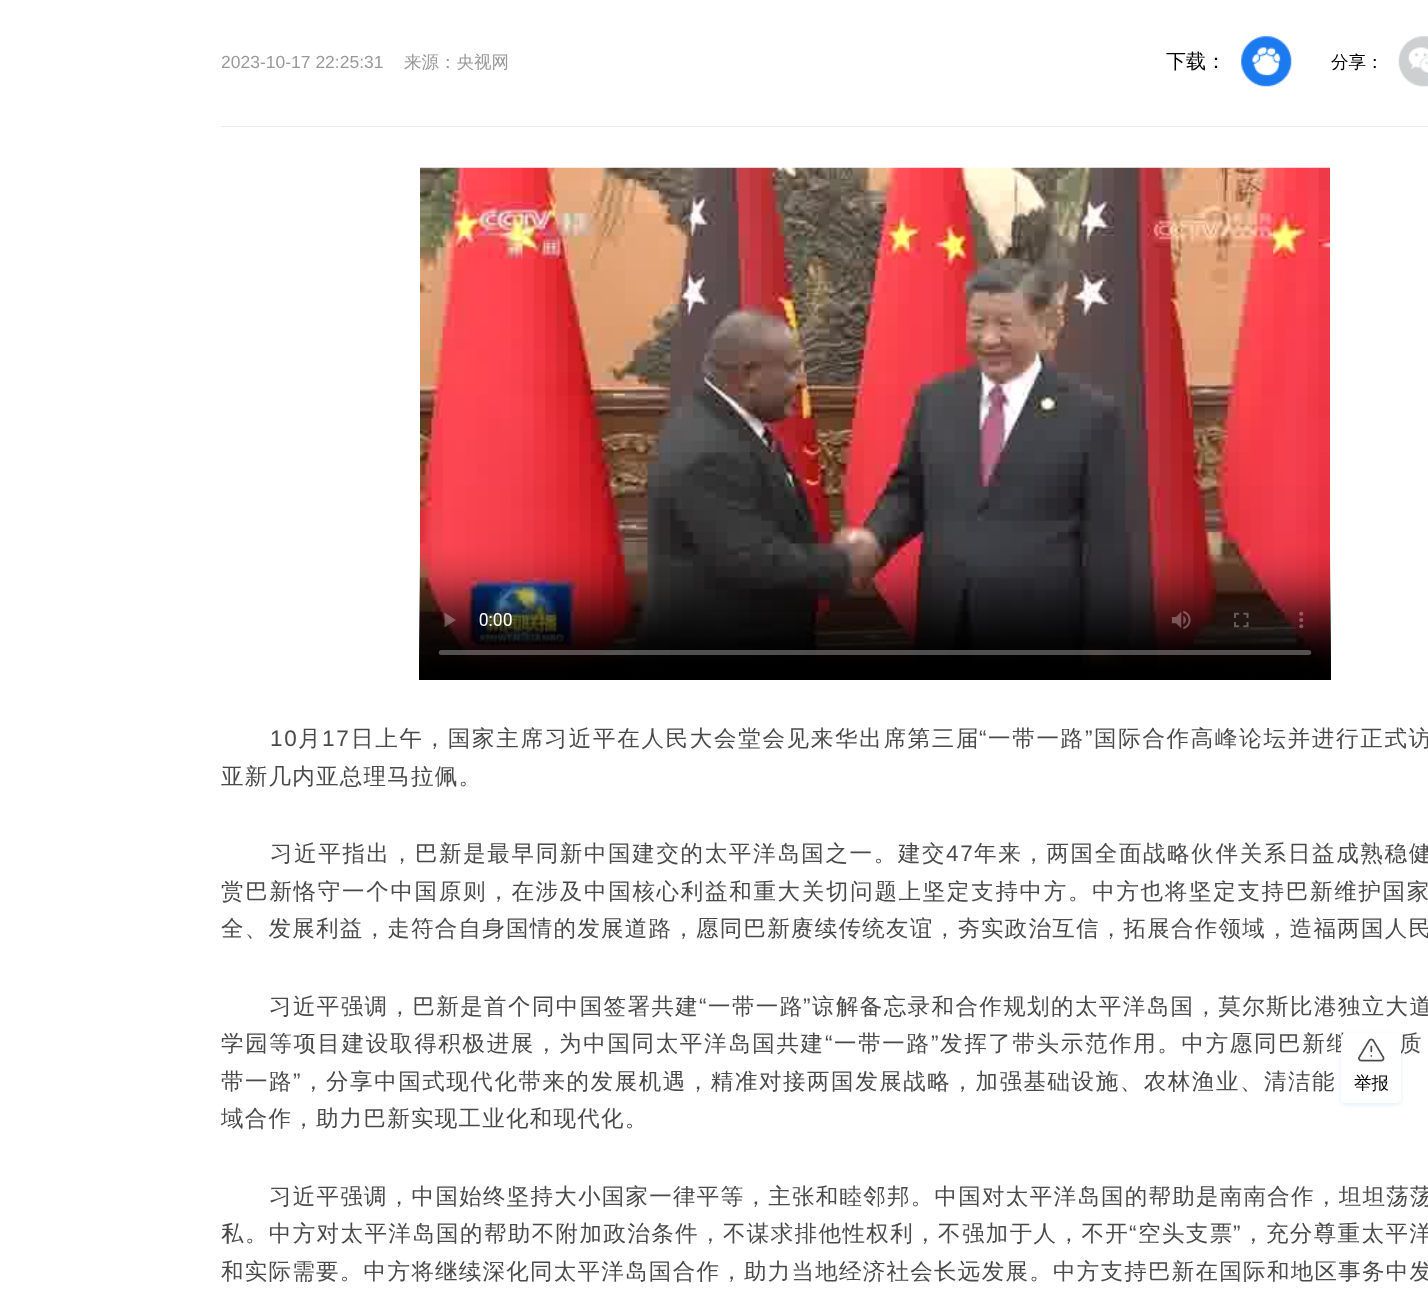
async function draw(canvas) {
	canvas.width = 1428;
	canvas.height = 1302;
	const c = canvas.getContext('2d');
	c.miterLimit = 4;
	c.fontKerning = 'normal';
	async function loadImage(src) {
		const img = new Image();
		img.src = src;
		await img.decode();
		return img;
	}

	c.fillStyle = '#fff';
	c.fillRect(0, 0, 1428, 1302);
	c.font = '17.5px Liberation Sans';
	c.fillStyle = '#999';
	c.fillText('2023-10-17 22:25:31', 221, 68);
	c.font = '500 17.5px WenQuanYi Zen Hei';
	c.fillText('来源：央视网', 404, 68);
	c.font = '500 20px WenQuanYi Zen Hei';
	c.fillStyle = '#000';
	c.fillText('下载：', 1166, 68);
	c.drawImage(await loadImage('img1.png'), 1241, 36, 51, 51);
	c.font = '500 17.5px WenQuanYi Zen Hei';
	c.fillText('分享：', 1331, 68);
	c.drawImage(await loadImage('img2.png'), 1398, 36, 30, 51);
	c.fillStyle = '#ebebeb';
	c.fillRect(221, 126, 1207, 1);
	c.drawImage(await loadImage('img3.png'), 419, 167, 912, 513);
	c.letterSpacing = '1.7px';
	c.font = '22.5px Liberation Sans';
	c.fillStyle = '#4a4a4a';
	c.fillText('10', 270, 746);
	c.font = '500 22.5px WenQuanYi Zen Hei';
	c.fillText('月', 298, 746);
	c.font = '22.5px Liberation Sans';
	c.fillText('17', 322, 746);
	c.font = '500 22.5px WenQuanYi Zen Hei';
	c.fillText('日上午，国家主席习近平在人民大会堂会见来华出席第三届', 351, 746);
	c.font = '22.5px Liberation Sans';
	c.fillText('“', 979, 746);
	c.font = '500 22.5px WenQuanYi Zen Hei';
	c.fillText('一带一路', 988, 746);
	c.font = '22.5px Liberation Sans';
	c.fillText('”', 1085, 746);
	c.font = '500 22.5px WenQuanYi Zen Hei';
	c.fillText('国际合作高峰论坛并进行正式访', 1094, 746);
	c.letterSpacing = '1.25px';
	c.fillText('亚新几内亚总理马拉佩。', 221, 784);
	c.letterSpacing = '1.65px';
	c.fillText('习近平指出，巴新是最早同新中国建交的太平洋岛国之一。建交', 270, 861);
	c.font = '22.5px Liberation Sans';
	c.fillText('47', 946, 861);
	c.font = '500 22.5px WenQuanYi Zen Hei';
	c.fillText('年来，两国全面战略伙伴关系日益成熟稳健', 974, 861);
	c.letterSpacing = '1.7px';
	c.fillText('赏巴新恪守一个中国原则，在涉及中国核心利益和重大关切问题上坚定支持中方。中方也将坚定支持巴新维护国家', 221, 899);
	c.letterSpacing = '1.25px';
	c.fillText('全、发展利益，走符合自身国情的发展道路，愿同巴新赓续传统友谊，夯实政治互信，拓展合作领域，造福两国人民', 221, 936);
	c.letterSpacing = '1.4px';
	c.fillText('习近平强调，巴新是首个同中国签署共建', 269, 1014);
	c.font = '22.5px Liberation Sans';
	c.fillText('“', 699, 1014);
	c.font = '500 22.5px WenQuanYi Zen Hei';
	c.fillText('一带一路', 708, 1014);
	c.font = '22.5px Liberation Sans';
	c.fillText('”', 803, 1014);
	c.font = '500 22.5px WenQuanYi Zen Hei';
	c.fillText('谅解备忘录和合作规划的太平洋岛国，莫尔斯比港独立大道', 812, 1014);
	c.letterSpacing = '1.65px';
	c.fillText('学园等项目建设取得积极进展，为中国同太平洋岛国共建', 221, 1051);
	c.font = '22.5px Liberation Sans';
	c.fillText('“', 825, 1051);
	c.font = '500 22.5px WenQuanYi Zen Hei';
	c.fillText('一带一路', 834, 1051);
	c.font = '22.5px Liberation Sans';
	c.fillText('”', 931, 1051);
	c.font = '500 22.5px WenQuanYi Zen Hei';
	c.fillText('发挥了带头示范作用。中方愿同巴新继', 940, 1051);
	c.fillText('质', 1399, 1051);
	c.letterSpacing = '1.55px';
	c.fillText('带一路', 221, 1089);
	c.font = '22.5px Liberation Sans';
	c.fillText('”', 293, 1089);
	c.font = '500 22.5px WenQuanYi Zen Hei';
	c.fillText('，分享中国式现代化带来的发展机遇，精准对接两国发展战略，加强基础设施、农林渔业、清洁能', 302, 1089);
	c.letterSpacing = '1.25px';
	c.fillText('域合作，助力巴新实现工业化和现代化。', 221, 1126);
	c.letterSpacing = '1.27px';
	c.fillText('习近平强调，中国始终坚持大小国家一律平等，主张和睦邻邦。中国对太平洋岛国的帮助是南南合作，坦坦荡荡', 269, 1204);
	c.letterSpacing = '1.4px';
	c.fillText('私。中方对太平洋岛国的帮助不附加政治条件，不谋求排他性权利，不强加于人，不开', 221, 1241);
	c.font = '22.5px Liberation Sans';
	c.fillText('“', 1129, 1241);
	c.font = '500 22.5px WenQuanYi Zen Hei';
	c.fillText('空头支票', 1138, 1241);
	c.font = '22.5px Liberation Sans';
	c.fillText('”', 1233, 1241);
	c.font = '500 22.5px WenQuanYi Zen Hei';
	c.fillText('，充分尊重太平洋', 1242, 1241);
	c.letterSpacing = '1.27px';
	c.fillText('和实际需要。中方将继续深化同太平洋岛国合作，助力当地经济社会长远发展。中方支持巴新在国际和地区事务中发', 221, 1279);
	c.fillStyle = '#1c7aef1f';
	c.filter = 'blur(2.5px)';
	c.beginPath();
	c.roundRect(1341, 1035, 60, 70, 5);
	c.fill();
	c.filter = 'none';
	c.fillStyle = '#fff';
	c.beginPath();
	c.roundRect(1341, 1033, 60, 70, 5);
	c.fill();
	c.drawImage(await loadImage('img4.png'), 1358, 1038, 27, 24);
	c.letterSpacing = '0px';
	c.font = '500 17.5px WenQuanYi Zen Hei';
	c.fillStyle = '#000';
	c.fillText('举报', 1354, 1089);
}

draw(document.querySelector('canvas'));
